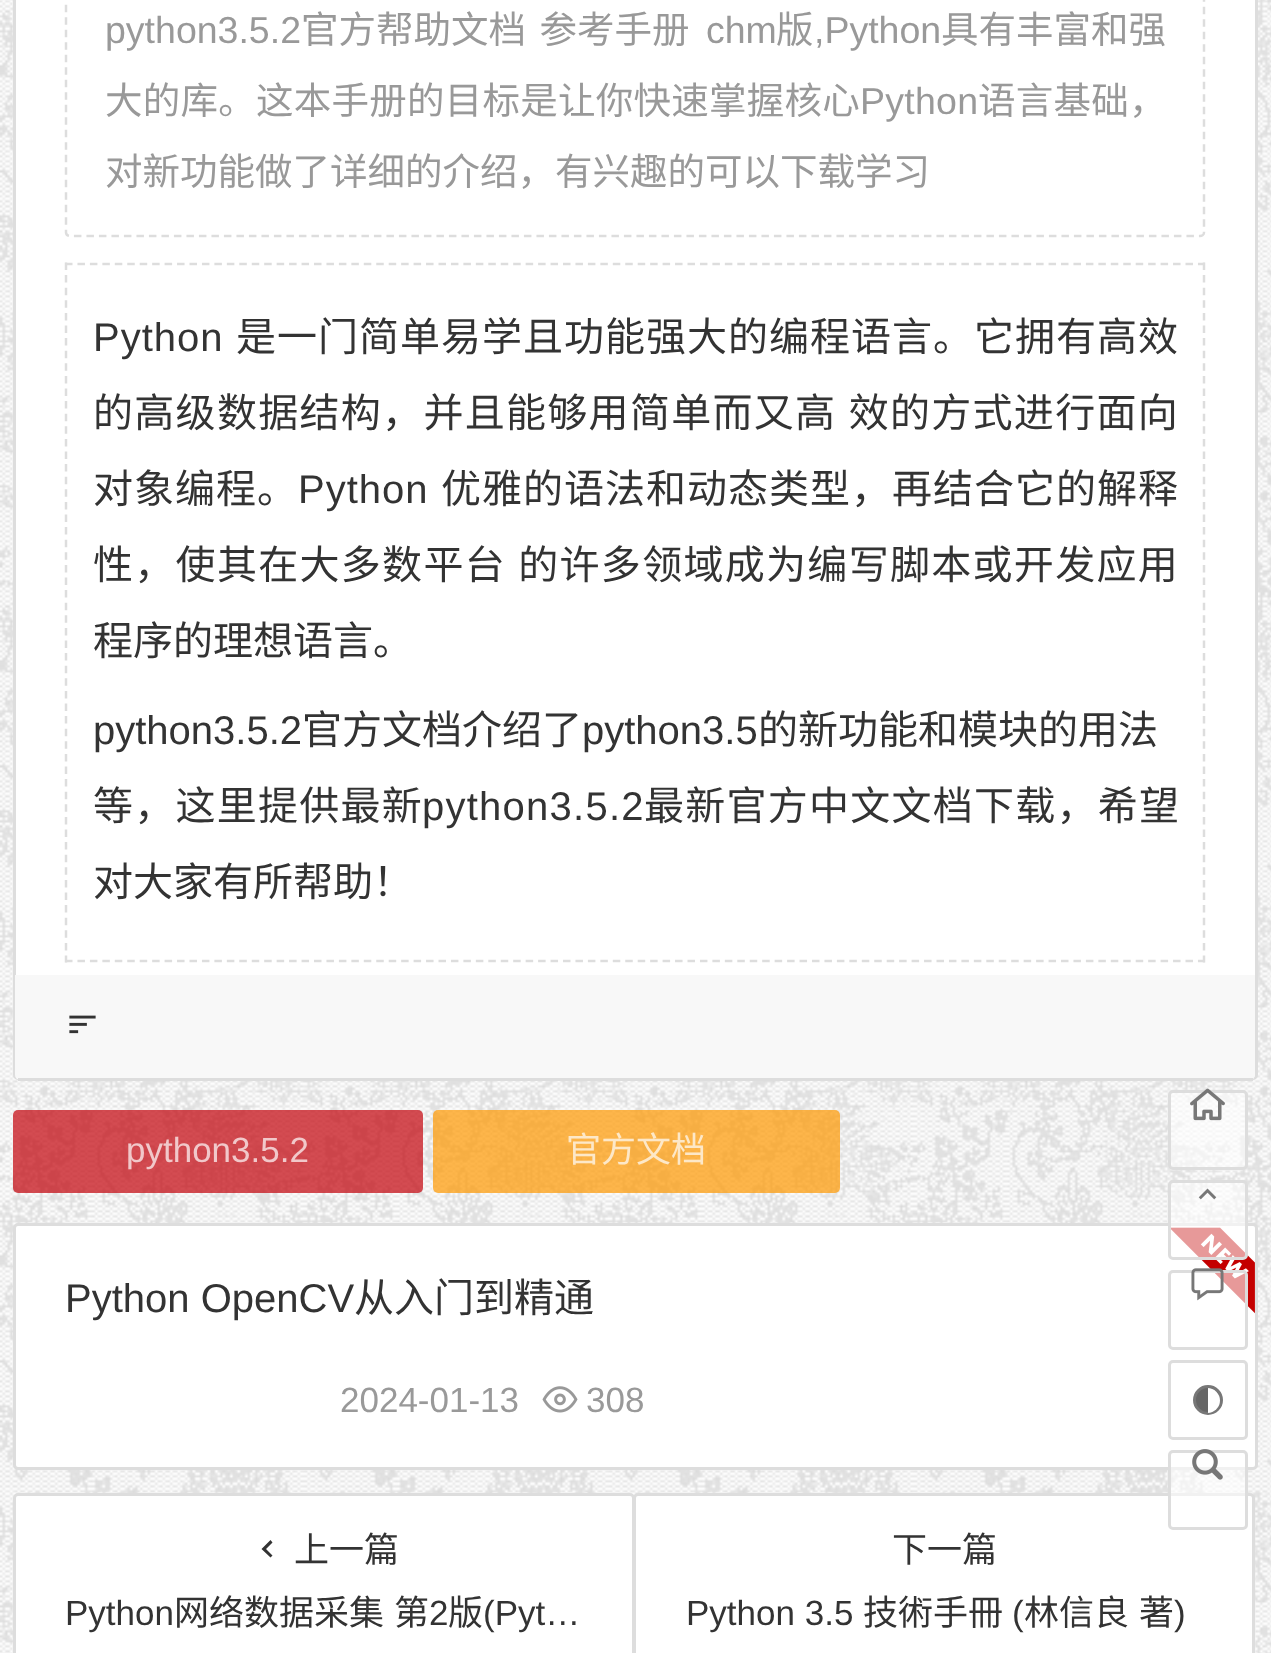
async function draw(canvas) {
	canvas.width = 1271;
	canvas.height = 1653;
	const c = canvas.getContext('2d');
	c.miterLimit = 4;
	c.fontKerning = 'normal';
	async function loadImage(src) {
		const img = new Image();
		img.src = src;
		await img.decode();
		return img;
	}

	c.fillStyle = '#fff';
	c.fillRect(0, 0, 1271, 1653);
	c.drawImage(await loadImage('img1.png'), 0, 0, 1271, 1653);
	c.beginPath();
	c.roundRect(14.5, -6.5, 1242, 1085, 3.5);
	c.fill();
	c.strokeStyle = '#ddd';
	c.lineWidth = 3;
	c.stroke();
	c.beginPath();
	c.moveTo(70, -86);
	c.lineTo(1200, -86);
	c.bezierCurveTo(1202, -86, 1204, -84.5, 1204, -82.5);
	c.lineTo(1204, 232.5);
	c.bezierCurveTo(1204, 234.5, 1202, 236, 1200, 236);
	c.lineTo(70, 236);
	c.bezierCurveTo(68, 236, 66, 234.5, 66, 232.5);
	c.lineTo(66, -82.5);
	c.bezierCurveTo(66, -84.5, 68, -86, 70, -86);
	c.closePath();
	c.lineWidth = 2.5;
	c.setLineDash([7.5, 5]);
	c.stroke();
	c.font = '37.5px Liberation Sans';
	c.fillStyle = '#999';
	c.fillText('python3.5.2', 105, 43);
	c.wordSpacing = '5px';
	c.font = '37.5px Noto Sans CJK SC';
	c.fillText('官方帮助文档 参考手册', 301, 43);
	c.wordSpacing = '0px';
	c.font = '37.5px Liberation Sans';
	c.fillText('chm', 706, 43);
	c.font = '37.5px Noto Sans CJK SC';
	c.fillText('版', 776, 43);
	c.font = '37.5px Liberation Sans';
	c.fillText(',Python', 814, 43);
	c.font = '37.5px Noto Sans CJK SC';
	c.fillText('具有丰富和强', 941, 43);
	c.letterSpacing = '0.25px';
	c.fillText('大的库。这本手册的目标是让你快速掌握核心', 105, 114);
	c.font = '37.5px Liberation Sans';
	c.fillText('Python', 860, 114);
	c.font = '37.5px Noto Sans CJK SC';
	c.fillText('语言基础，', 978, 114);
	c.letterSpacing = '0px';
	c.fillText('对新功能做了详细的介绍，有兴趣的可以下载学习', 105, 185);
	c.beginPath();
	c.moveTo(65, 264);
	c.lineTo(1205, 264);
	c.setLineDash([7.5, 4.95]);
	c.stroke();
	c.beginPath();
	c.moveTo(1204, 262.5);
	c.lineTo(1204, 962.5);
	c.setLineDash([7.5, 5.1]);
	c.stroke();
	c.beginPath();
	c.moveTo(65, 961);
	c.lineTo(1205, 961);
	c.setLineDash([7.5, 4.95]);
	c.stroke();
	c.beginPath();
	c.moveTo(66, 262.5);
	c.lineTo(66, 962.5);
	c.setLineDash([7.5, 5.1]);
	c.stroke();
	c.letterSpacing = '1px';
	c.font = '40px Liberation Sans';
	c.fillStyle = '#333';
	c.fillText('Python', 93, 351);
	c.font = '40px Noto Sans CJK SC';
	c.fillText('是一门简单易学且功能强大的编程语言。它拥有高效', 236, 351);
	c.letterSpacing = '1.3px';
	c.wordSpacing = '2px';
	c.fillText('的高级数据结构，并且能够用简单而又高 效的方式进行面向', 93, 427);
	c.letterSpacing = '1px';
	c.wordSpacing = '0px';
	c.fillText('对象编程。', 93, 503);
	c.font = '40px Liberation Sans';
	c.fillText('Python', 298, 503);
	c.font = '40px Noto Sans CJK SC';
	c.fillText('优雅的语法和动态类型，再结合它的解释', 441, 503);
	c.letterSpacing = '1.3px';
	c.wordSpacing = '2px';
	c.fillText('性，使其在大多数平台 的许多领域成为编写脚本或开发应用', 93, 579);
	c.letterSpacing = '0px';
	c.wordSpacing = '0px';
	c.fillText('程序的理想语言。', 93, 655);
	c.font = '40px Liberation Sans';
	c.fillText('python3.5.2', 93, 744);
	c.font = '40px Noto Sans CJK SC';
	c.fillText('官方文档介绍了', 302, 744);
	c.font = '40px Liberation Sans';
	c.fillText('python3.5', 582, 744);
	c.font = '40px Noto Sans CJK SC';
	c.fillText('的新功能和模块的用法', 758, 744);
	c.letterSpacing = '1.25px';
	c.fillText('等，这里提供最新', 93, 820);
	c.font = '40px Liberation Sans';
	c.fillText('python3.5.2', 422, 820);
	c.font = '40px Noto Sans CJK SC';
	c.fillText('最新官方中文文档下载，希望', 644, 820);
	c.letterSpacing = '0px';
	c.fillText('对大家有所帮助！', 93, 896);
	c.fillStyle = '#f8f8f8';
	c.beginPath();
	c.roundRect(15, 975, 1240, 105, [0, 0, 5, 5]);
	c.fill();
	c.fillStyle = '#ddd';
	c.fillRect(18, 1078, 1235, 3);
	c.drawImage(await loadImage('img2.png'), 69, 1015, 27, 19);
	c.fillStyle = '#c3010ab3';
	c.beginPath();
	c.roundRect(13, 1110, 410, 83, 5);
	c.fill();
	c.font = '35px Liberation Sans';
	c.fillStyle = '#f1c8ca';
	c.fillText('python3.5.2', 126, 1162);
	c.fillStyle = '#ff9900b3';
	c.beginPath();
	c.roundRect(433, 1110, 407, 83, 5);
	c.fill();
	c.font = '35px Noto Sans CJK SC';
	c.fillStyle = '#fde8c8';
	c.fillText('官方文档', 566, 1162);
	c.fillStyle = '#fff';
	c.beginPath();
	c.roundRect(14.5, 1224.5, 1242, 244, 3.5);
	c.fill();
	c.lineWidth = 3;
	c.setLineDash([]);
	c.stroke();
	c.font = '40px Liberation Sans';
	c.fillStyle = '#333';
	c.fillText('Python OpenCV', 65, 1312);
	c.font = '40px Noto Sans CJK SC';
	c.fillText('从入门到精通', 354, 1312);
	c.drawImage(await loadImage('img3.png'), 1171, 1227, 84, 87);
	c.font = '35px Liberation Sans';
	c.fillStyle = '#999';
	c.fillText('2024-01-13', 340, 1412);
	c.drawImage(await loadImage('img4.png'), 542, 1386, 36, 27);
	c.fillText('308', 586, 1412);
	c.fillStyle = '#fff';
	c.beginPath();
	c.roundRect(14.5, 1494.5, 619, 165, 3.5);
	c.fill();
	c.stroke();
	c.font = '35px Noto Sans CJK SC';
	c.fillStyle = '#333';
	c.fillText('上一篇', 294, 1562);
	c.beginPath();
	c.moveTo(272.5, 1555.5);
	c.lineTo(266, 1549);
	c.lineTo(272.5, 1542.5);
	c.lineTo(270.5, 1540);
	c.lineTo(261.5, 1549);
	c.lineTo(270.5, 1557.5);
	c.closePath();
	c.fill();
	c.font = '35px Liberation Sans';
	c.fillText('Python', 65, 1625);
	c.font = '35px Noto Sans CJK SC';
	c.fillText('网络数据采集', 174, 1625);
	c.fillText('第', 394, 1625);
	c.font = '35px Liberation Sans';
	c.fillText('2', 429, 1625);
	c.font = '35px Noto Sans CJK SC';
	c.fillText('版', 448, 1625);
	c.font = '35px Liberation Sans';
	c.fillText('(Pyt…', 483, 1625);
	c.fillStyle = '#fff';
	c.beginPath();
	c.roundRect(634.5, 1494.5, 619, 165, 3.5);
	c.fill();
	c.stroke();
	c.font = '35px Noto Sans CJK SC';
	c.fillStyle = '#333';
	c.fillText('下一篇', 892, 1562);
	c.font = '35px Liberation Sans';
	c.fillText('Python 3.5', 686, 1625);
	c.font = '35px Noto Sans CJK SC';
	c.fillText('技術手冊', 863, 1625);
	c.font = '35px Liberation Sans';
	c.fillText('(', 1012, 1625);
	c.font = '35px Noto Sans CJK SC';
	c.fillText('林信良', 1024, 1625);
	c.fillText('著', 1139, 1625);
	c.font = '35px Liberation Sans';
	c.fillText(')', 1174, 1625);
	c.fillStyle = '#ffffff99';
	c.beginPath();
	c.roundRect(1169.5, 1091.5, 77, 77, 3.5);
	c.fill();
	c.stroke();
	c.drawImage(await loadImage('img5.png'), 1190, 1088, 35, 33);
	c.beginPath();
	c.roundRect(1169.5, 1181.5, 77, 77, 3.5);
	c.fill();
	c.stroke();
	c.drawImage(await loadImage('img6.png'), 1198, 1188, 19, 12);
	c.beginPath();
	c.roundRect(1169.5, 1271.5, 77, 77, 3.5);
	c.fill();
	c.stroke();
	c.drawImage(await loadImage('img7.png'), 1191, 1268, 33, 33);
	c.beginPath();
	c.roundRect(1169.5, 1361.5, 77, 77, 3.5);
	c.stroke();
	c.fillStyle = '#666';
	c.beginPath();
	c.arc(1208, 1400, 13.5, 0, 2 * Math.PI);
	c.fill();
	c.strokeStyle = '#777';
	c.stroke();
	c.save();
	c.beginPath();
	c.roundRect(1195, 1388, 25, 25, 12.5);
	c.clip();
	c.fillStyle = '#fff';
	c.fillRect(1208, 1388, 12, 25);
	c.restore();
	c.fillStyle = '#ffffff99';
	c.beginPath();
	c.roundRect(1169.5, 1451.5, 77, 77, 3.5);
	c.fill();
	c.strokeStyle = '#ddd';
	c.stroke();
	c.drawImage(await loadImage('img8.png'), 1192, 1449, 31, 31);
}

draw(document.querySelector('canvas'));
